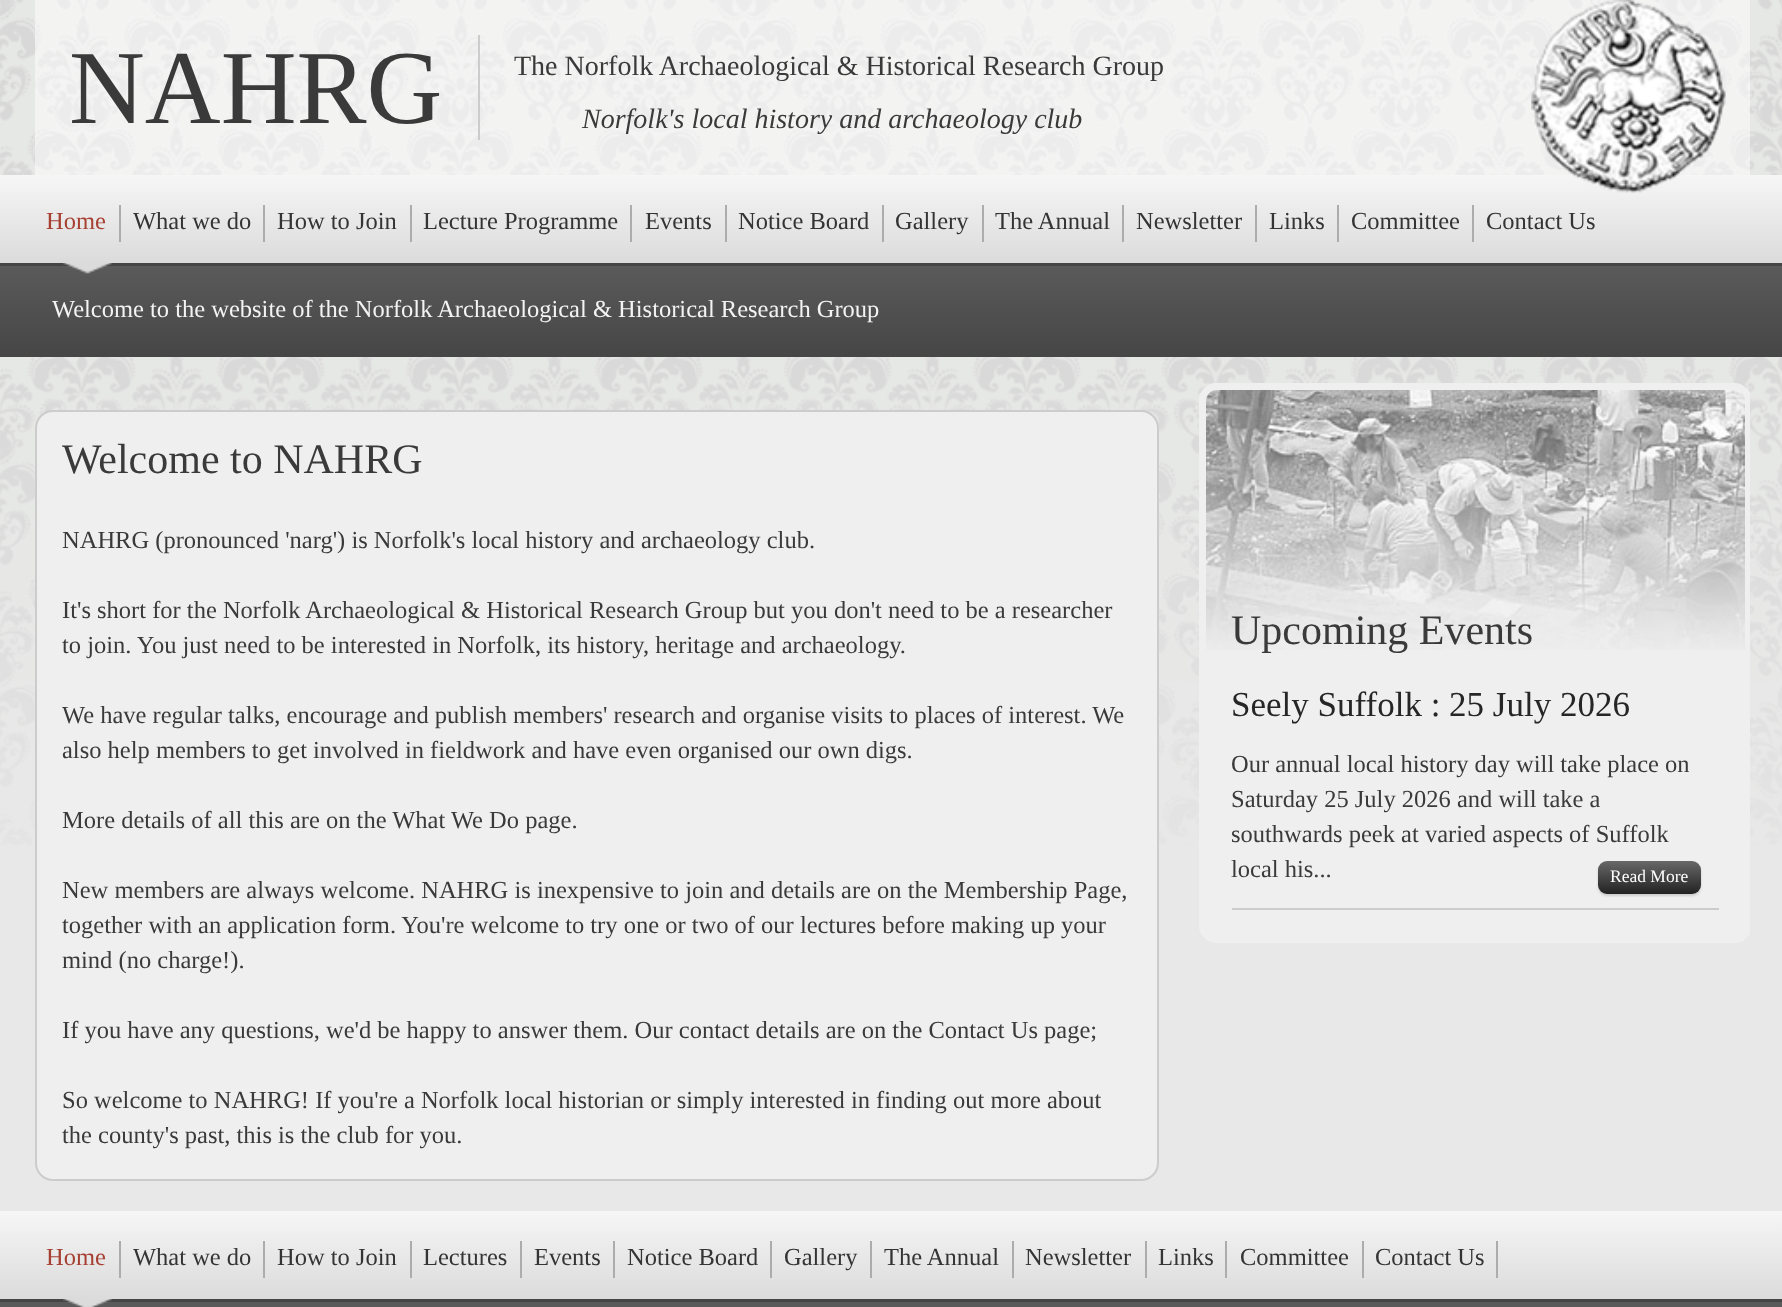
async function draw(canvas) {
	canvas.width = 1782;
	canvas.height = 1307;
	const c = canvas.getContext('2d');
	c.miterLimit = 4;
	c.fontKerning = 'normal';
	async function loadImage(src) {
		const img = new Image();
		img.src = src;
		await img.decode();
		return img;
	}
	let gradient;

	c.fillStyle = '#e8e8e8';
	c.fillRect(0, 0, 1782, 1307);
	c.drawImage(await loadImage('img1.png'), 0, 0, 1782, 845);
	c.fillStyle = '#ffffff80';
	c.fillRect(35, 0, 1715, 175);
	c.fillStyle = '#ccc';
	c.fillRect(478, 35, 2, 105);
	c.font = '105px Liberation Serif';
	c.fillStyle = '#3a3a3a';
	c.fillText('NAHRG', 69, 123);
	c.font = '28px Liberation Serif';
	c.fillText('The Norfolk Archaeological & Historical Research Group', 514, 75);
	c.font = 'italic 28px Liberation Serif';
	c.fillText('Norfolk\'s local history and archaeology club', 582, 128);
	gradient = c.createLinearGradient(892, 175, 892, 263);
	gradient.addColorStop(0, '#f6f6f6');
	gradient.addColorStop(1, '#dbdbdb');
	c.fillStyle = gradient;
	c.fillRect(0, 175, 1782, 88);
	c.drawImage(await loadImage('img2.png'), 1531, 0, 195, 193);
	c.fillStyle = '#acacac';
	c.fillRect(119, 205, 2, 37);
	c.font = '24.5px Liberation Serif';
	c.fillStyle = '#a64032';
	c.fillText('Home', 46, 229);
	gradient = c.createLinearGradient(892, 171, 892, 266);
	gradient.addColorStop(0, '#5a5a5a');
	gradient.addColorStop(1, '#454545');
	c.fillStyle = gradient;
	c.fillRect(0, 263, 1782, 3);
	gradient = c.createLinearGradient(892, 266, 892, 361);
	gradient.addColorStop(0, '#5a5a5a');
	gradient.addColorStop(1, '#454545');
	c.fillStyle = gradient;
	c.fillRect(0, 266, 1782, 91);
	c.drawImage(await loadImage('img3.png'), 63, 263, 49, 11);
	c.fillStyle = '#acacac';
	c.fillRect(263, 205, 2, 37);
	c.fillStyle = '#343434';
	c.fillText('What we do', 133, 229);
	c.fillStyle = '#acacac';
	c.fillRect(410, 205, 2, 37);
	c.fillStyle = '#343434';
	c.fillText('How to Join', 277, 229);
	c.fillStyle = '#acacac';
	c.fillRect(630, 205, 2, 37);
	c.fillStyle = '#343434';
	c.fillText('Lecture Programme', 423, 229);
	c.fillStyle = '#acacac';
	c.fillRect(725, 205, 2, 37);
	c.fillStyle = '#343434';
	c.fillText('Events', 645, 229);
	c.fillStyle = '#acacac';
	c.fillRect(882, 205, 2, 37);
	c.fillStyle = '#343434';
	c.fillText('Notice Board', 738, 229);
	c.fillStyle = '#acacac';
	c.fillRect(982, 205, 2, 37);
	c.fillStyle = '#343434';
	c.fillText('Gallery', 895, 229);
	c.fillStyle = '#acacac';
	c.fillRect(1122, 205, 2, 37);
	c.fillStyle = '#343434';
	c.fillText('The Annual', 995, 229);
	c.fillStyle = '#acacac';
	c.fillRect(1255, 205, 2, 37);
	c.fillStyle = '#343434';
	c.fillText('Newsletter', 1136, 229);
	c.fillStyle = '#acacac';
	c.fillRect(1337, 205, 2, 37);
	c.fillStyle = '#343434';
	c.fillText('Links', 1269, 229);
	c.fillStyle = '#acacac';
	c.fillRect(1472, 205, 2, 37);
	c.fillStyle = '#343434';
	c.fillText('Committee', 1351, 229);
	c.fillText('Contact Us', 1486, 229);
	c.fillStyle = '#f3f3f3';
	c.fillText('Welcome to the website of the Norfolk Archaeological & Historical Research Group', 52, 317);
	c.fillStyle = '#efefef';
	c.beginPath();
	c.roundRect(36, 411, 1122, 769, 17);
	c.fill();
	c.strokeStyle = '#ccc';
	c.lineWidth = 2;
	c.stroke();
	c.font = '42px Liberation Serif';
	c.fillStyle = '#3a3a3a';
	c.fillText('Welcome to NAHRG', 62, 473);
	c.font = '24.5px Liberation Serif';
	for (const [text, x, y] of [
		['NAHRG (pronounced \'narg\') is Norfolk\'s local history and archaeology club.', 62, 548],
		['It\'s short for the Norfolk Archaeological & Historical Research Group but you don\'t need to be a researcher', 62, 618],
		['to join. You just need to be interested in Norfolk, its history, heritage and archaeology.', 62, 653],
		['We have regular talks, encourage and publish members\' research and organise visits to places of interest. We', 62, 723],
		['also help members to get involved in fieldwork and have even organised our own digs.', 62, 758],
		['More details of all this are on the What We Do page.', 62, 828],
		['New members are always welcome. NAHRG is inexpensive to join and details are on the Membership Page,', 62, 898],
		['together with an application form. You\'re welcome to try one or two of our lectures before making up your', 62, 933],
		['mind (no charge!).', 62, 968],
		['If you have any questions, we\'d be happy to answer them. Our contact details are on the Contact Us page;', 62, 1038],
		['So welcome to NAHRG! If you\'re a Norfolk local historian or simply interested in finding out more about', 62, 1108],
		['the county\'s past, this is the club for you.', 62, 1143],
	]) {
		c.fillText(text, x, y);
	}
	c.save();
	c.beginPath();
	c.rect(35, 357, 1715, 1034);
	c.clip();
	c.fillStyle = '#efefef';
	c.beginPath();
	c.roundRect(1199, 383, 553, 560, 18);
	c.fill();
	c.restore();
	c.drawImage(await loadImage('img4.png'), 1205, 383, 545, 267);
	c.save();
	c.beginPath();
	c.rect(35, 357, 1715, 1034);
	c.clip();
	c.beginPath();
	c.roundRect(1202.5, 386.5, 546, 553, 14.5);
	c.strokeStyle = '#efefef';
	c.lineWidth = 7;
	c.stroke();
	c.restore();
	c.font = '42px Liberation Serif';
	c.fillText('Upcoming Events', 1231, 644);
	c.font = '35px Liberation Serif';
	c.fillStyle = '#262626';
	c.fillText('Seely Suffolk : 25 July 2026', 1231, 716);
	c.font = '24.5px Liberation Serif';
	c.fillStyle = '#3a3a3a';
	for (const [text, x, y] of [
		['Our annual local history day will take place on', 1231, 772],
		['Saturday 25 July 2026 and will take a', 1231, 807],
		['southwards peek at varied aspects of Suffolk', 1231, 842],
		['local his...', 1231, 877],
	]) {
		c.fillText(text, x, y);
	}
	c.fillStyle = '#ccc';
	c.filter = 'blur(1px)';
	c.beginPath();
	c.roundRect(1598, 863, 103, 33, 9);
	c.fill();
	c.filter = 'none';
	gradient = c.createLinearGradient(1649, 861, 1649, 894);
	gradient.addColorStop(0, '#686868');
	gradient.addColorStop(1, '#222');
	c.fillStyle = gradient;
	c.beginPath();
	c.roundRect(1598, 861, 103, 33, 9);
	c.fill();
	c.font = '17.5px Liberation Serif';
	c.fillStyle = '#fff';
	c.fillText('Read More', 1610, 882);
	c.fillStyle = '#ccc';
	c.fillRect(1232, 908, 487, 2);
	gradient = c.createLinearGradient(892, 1211, 892, 1299);
	gradient.addColorStop(0, '#f6f6f6');
	gradient.addColorStop(1, '#dbdbdb');
	c.fillStyle = gradient;
	c.fillRect(0, 1211, 1782, 88);
	c.fillStyle = '#acacac';
	c.fillRect(119, 1241, 2, 37);
	c.font = '24.5px Liberation Serif';
	c.fillStyle = '#a64032';
	c.fillText('Home', 46, 1265);
	c.fillStyle = '#5a5a5a';
	c.fillRect(0, 1302, 1782, 5);
	gradient = c.createLinearGradient(892, 1207, 892, 1302);
	gradient.addColorStop(0, '#5a5a5a');
	gradient.addColorStop(1, '#454545');
	c.fillStyle = gradient;
	c.fillRect(0, 1299, 1782, 3);
	c.drawImage(await loadImage('img5.png'), 63, 1299, 49, 8);
	c.fillStyle = '#acacac';
	c.fillRect(263, 1241, 2, 37);
	c.fillStyle = '#343434';
	c.fillText('What we do', 133, 1265);
	c.fillStyle = '#acacac';
	c.fillRect(410, 1241, 2, 37);
	c.fillStyle = '#343434';
	c.fillText('How to Join', 277, 1265);
	c.fillStyle = '#acacac';
	c.fillRect(520, 1241, 2, 37);
	c.fillStyle = '#343434';
	c.fillText('Lectures', 423, 1265);
	c.fillStyle = '#acacac';
	c.fillRect(613, 1241, 2, 37);
	c.fillStyle = '#343434';
	c.fillText('Events', 534, 1265);
	c.fillStyle = '#acacac';
	c.fillRect(770, 1241, 2, 37);
	c.fillStyle = '#343434';
	c.fillText('Notice Board', 627, 1265);
	c.fillStyle = '#acacac';
	c.fillRect(870, 1241, 2, 37);
	c.fillStyle = '#343434';
	c.fillText('Gallery', 784, 1265);
	c.fillStyle = '#acacac';
	c.fillRect(1012, 1241, 2, 37);
	c.fillStyle = '#343434';
	c.fillText('The Annual', 884, 1265);
	c.fillStyle = '#acacac';
	c.fillRect(1145, 1241, 2, 37);
	c.fillStyle = '#343434';
	c.fillText('Newsletter', 1025, 1265);
	c.fillStyle = '#acacac';
	c.fillRect(1225, 1241, 2, 37);
	c.fillStyle = '#343434';
	c.fillText('Links', 1158, 1265);
	c.fillStyle = '#acacac';
	c.fillRect(1362, 1241, 2, 37);
	c.fillStyle = '#343434';
	c.fillText('Committee', 1240, 1265);
	c.fillStyle = '#acacac';
	c.fillRect(1496, 1241, 2, 37);
	c.fillStyle = '#343434';
	c.fillText('Contact Us', 1375, 1265);
}

draw(document.querySelector('canvas'));
